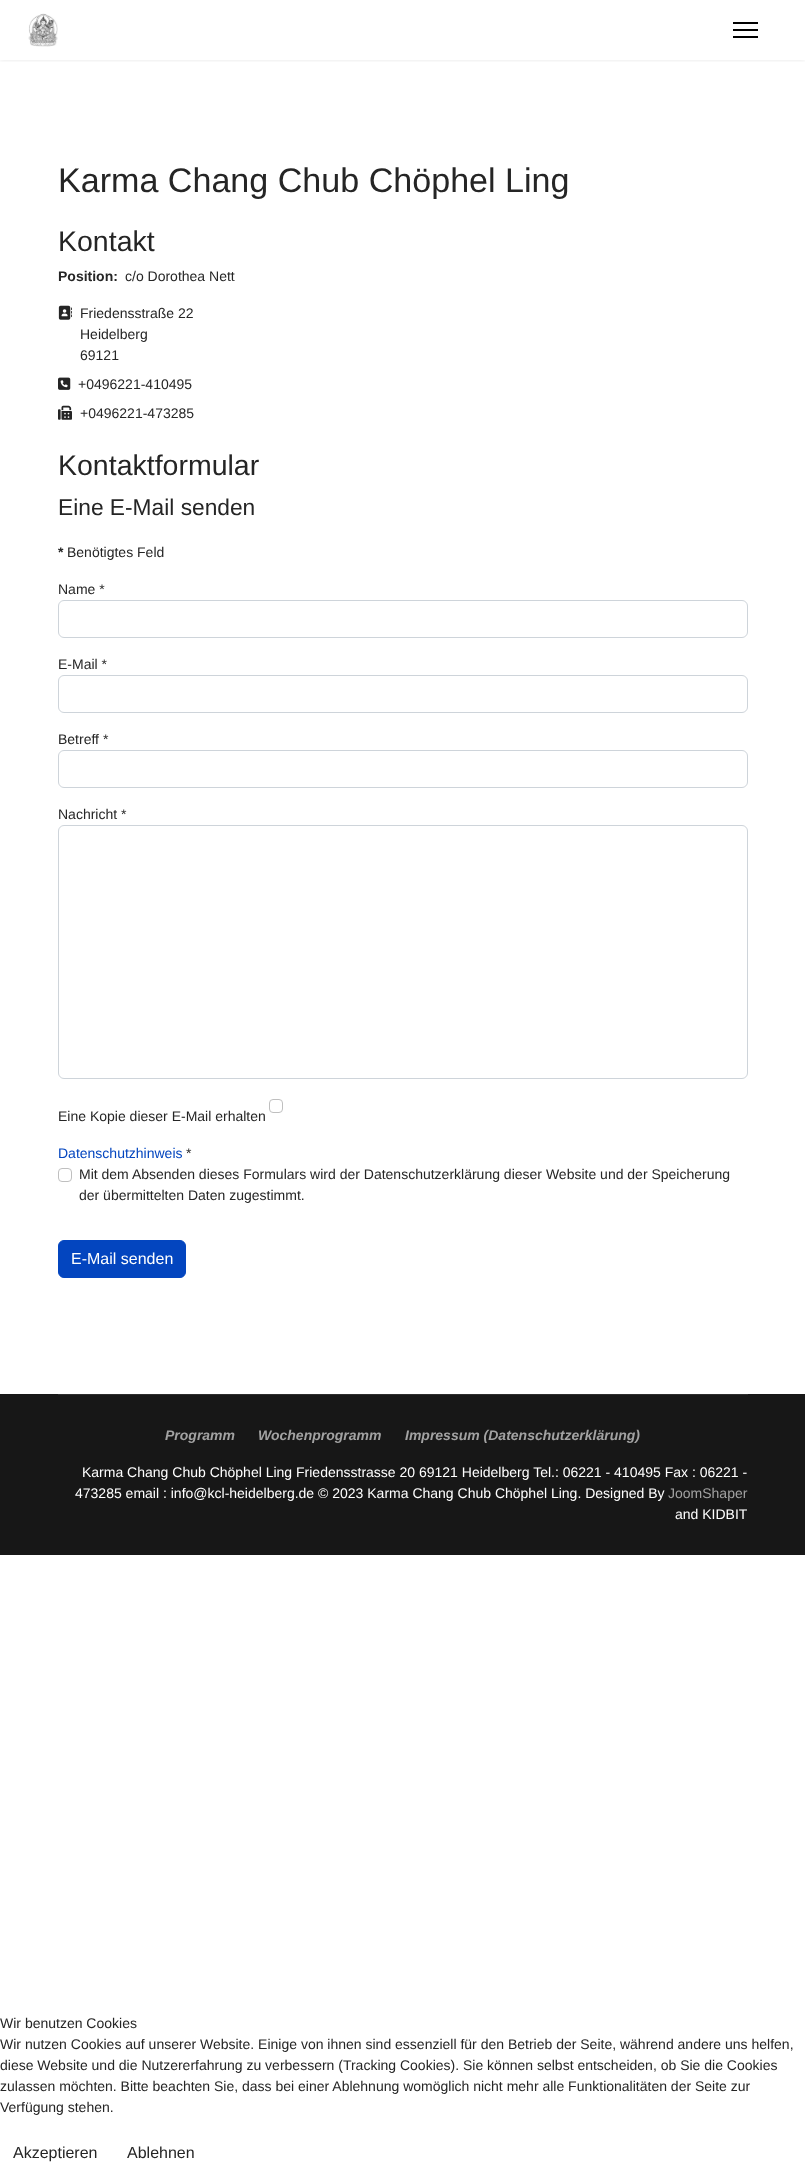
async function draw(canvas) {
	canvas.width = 805;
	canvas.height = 2172;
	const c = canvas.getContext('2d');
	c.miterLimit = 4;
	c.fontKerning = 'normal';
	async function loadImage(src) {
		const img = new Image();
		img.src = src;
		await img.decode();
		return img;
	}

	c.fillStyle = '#fff';
	c.fillRect(0, 0, 805, 2172);
	c.save();
	c.beginPath();
	c.rect(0, 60, 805, 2);
	c.clip();
	c.fillStyle = '#0000001a';
	c.filter = 'blur(2px)';
	c.beginPath();
	c.rect(0, 0, 805, 60);
	c.fill();
	c.filter = 'none';
	c.restore();
	c.drawImage(await loadImage('img1.png'), 28, 13, 30, 34);
	for (const [x, y, w, h, color] of [
		[733, 22, 25, 2, '#000'],
		[733, 29, 25, 2, '#000'],
		[733, 36, 25, 2, '#000'],
	]) {
		c.fillStyle = color;
		c.fillRect(x, y, w, h);
	}
	c.font = '34.1px Liberation Sans';
	c.fillStyle = '#252525';
	c.fillText('Karma Chang Chub Chöphel Ling', 58, 192);
	c.font = '28.5px Liberation Sans';
	c.fillText('Kontakt', 58, 251);
	c.font = 'bold 14px Liberation Sans';
	c.fillText('Position:', 58, 281);
	c.font = '14px Liberation Sans';
	c.fillText('c/o Dorothea Nett', 125, 281);
	c.drawImage(await loadImage('img2.png'), 58, 305, 14, 15);
	for (const [text, x, y] of [
		['Friedensstraße 22', 80, 318],
		['Heidelberg', 80, 339],
		['69121', 80, 360],
	]) {
		c.fillText(text, x, y);
	}
	c.drawImage(await loadImage('img3.png'), 58, 377, 13, 13);
	c.fillText('+0496221-410495', 78, 389);
	c.drawImage(await loadImage('img4.png'), 58, 405, 14, 15);
	c.fillText('+0496221-473285', 80, 418);
	c.font = '28.5px Liberation Sans';
	c.fillText('Kontaktformular', 58, 475);
	c.font = '22.75px Liberation Sans';
	c.fillText('Eine E-Mail senden', 58, 515);
	c.font = 'bold 14px Liberation Sans';
	c.fillText('*', 58, 557);
	c.font = '14px Liberation Sans';
	c.fillText('Benötigtes Feld', 67, 557);
	c.fillText('Name *', 58, 594);
	c.beginPath();
	c.roundRect(58.5, 600.5, 689, 37, 5.5);
	c.strokeStyle = '#ced4da';
	c.stroke();
	c.fillText('E-Mail *', 58, 669);
	c.beginPath();
	c.roundRect(58.5, 675.5, 689, 37, 5.5);
	c.stroke();
	c.fillText('Betreff *', 58, 744);
	c.beginPath();
	c.roundRect(58.5, 750.5, 689, 37, 5.5);
	c.stroke();
	c.fillText('Nachricht *', 58, 819);
	c.beginPath();
	c.roundRect(58.5, 825.5, 689, 253, 5.5);
	c.stroke();
	c.beginPath();
	c.roundRect(269.5, 1099.5, 13, 13, 3.5);
	c.strokeStyle = '#bfbfbf';
	c.stroke();
	c.fillText('Eine Kopie dieser E-Mail erhalten', 58, 1121);
	c.fillStyle = '#0345bf';
	c.fillText('Datenschutzhinweis', 58, 1158);
	c.fillStyle = '#252525';
	c.fillText('*', 186, 1158);
	c.beginPath();
	c.roundRect(58.5, 1168.5, 13, 13, 3.5);
	c.stroke();
	c.fillText('Mit dem Absenden dieses Formulars wird der Datenschutzerklärung dieser Website und der Speicherung', 79, 1179);
	c.fillText('der übermittelten Daten zugestimmt.', 79, 1200);
	c.fillStyle = '#0345bf';
	c.beginPath();
	c.roundRect(58.5, 1240.5, 127, 37, 5.5);
	c.fill();
	c.strokeStyle = '#0345bf';
	c.stroke();
	c.font = '16px Liberation Sans';
	c.fillStyle = '#fff';
	c.fillText('E-Mail senden', 71, 1264);
	c.fillStyle = '#171717';
	c.fillRect(0, 1394, 805, 161);
	c.fillStyle = '#2e2e2e';
	c.fillRect(58, 1394, 690, 1);
	c.font = 'italic bold 14px Liberation Sans';
	c.fillStyle = '#a2a2a2';
	for (const [text, x, y] of [
		['Programm', 165, 1440],
		['Wochenprogramm', 258, 1440],
		['Impressum (Datenschutzerklärung)', 405, 1440],
	]) {
		c.fillText(text, x, y);
	}
	c.font = '14px Liberation Sans';
	c.fillStyle = '#fff';
	c.fillText('Karma Chang Chub Chöphel Ling Friedensstrasse 20 69121 Heidelberg Tel.: 06221 - 410495 Fax : 06221 -', 82, 1477);
	c.fillText('473285 email : info@kcl-heidelberg.de © 2023 Karma Chang Chub Chöphel Ling. Designed By', 75, 1498);
	c.fillStyle = '#a2a2a2';
	c.fillText('JoomShaper', 668, 1498);
	c.fillStyle = '#fff';
	c.fillText('and KIDBIT', 675, 1519);
	c.fillStyle = '#252525';
	for (const [text, x, y] of [
		['Wir benutzen Cookies', 0, 2028],
		['Wir nutzen Cookies auf unserer Website. Einige von ihnen sind essenziell für den Betrieb der Seite, während andere uns helfen,', 0, 2049],
		['diese Website und die Nutzererfahrung zu verbessern (Tracking Cookies). Sie können selbst entscheiden, ob Sie die Cookies', 0, 2070],
		['zulassen möchten. Bitte beachten Sie, dass bei einer Ablehnung womöglich nicht mehr alle Funktionalitäten der Seite zur', 0, 2091],
		['Verfügung stehen.', 0, 2112],
	]) {
		c.fillText(text, x, y);
	}
	c.font = '16px Liberation Sans';
	c.fillText('Akzeptieren', 13, 2158);
	c.fillText('Ablehnen', 127, 2158);
}

draw(document.querySelector('canvas'));
